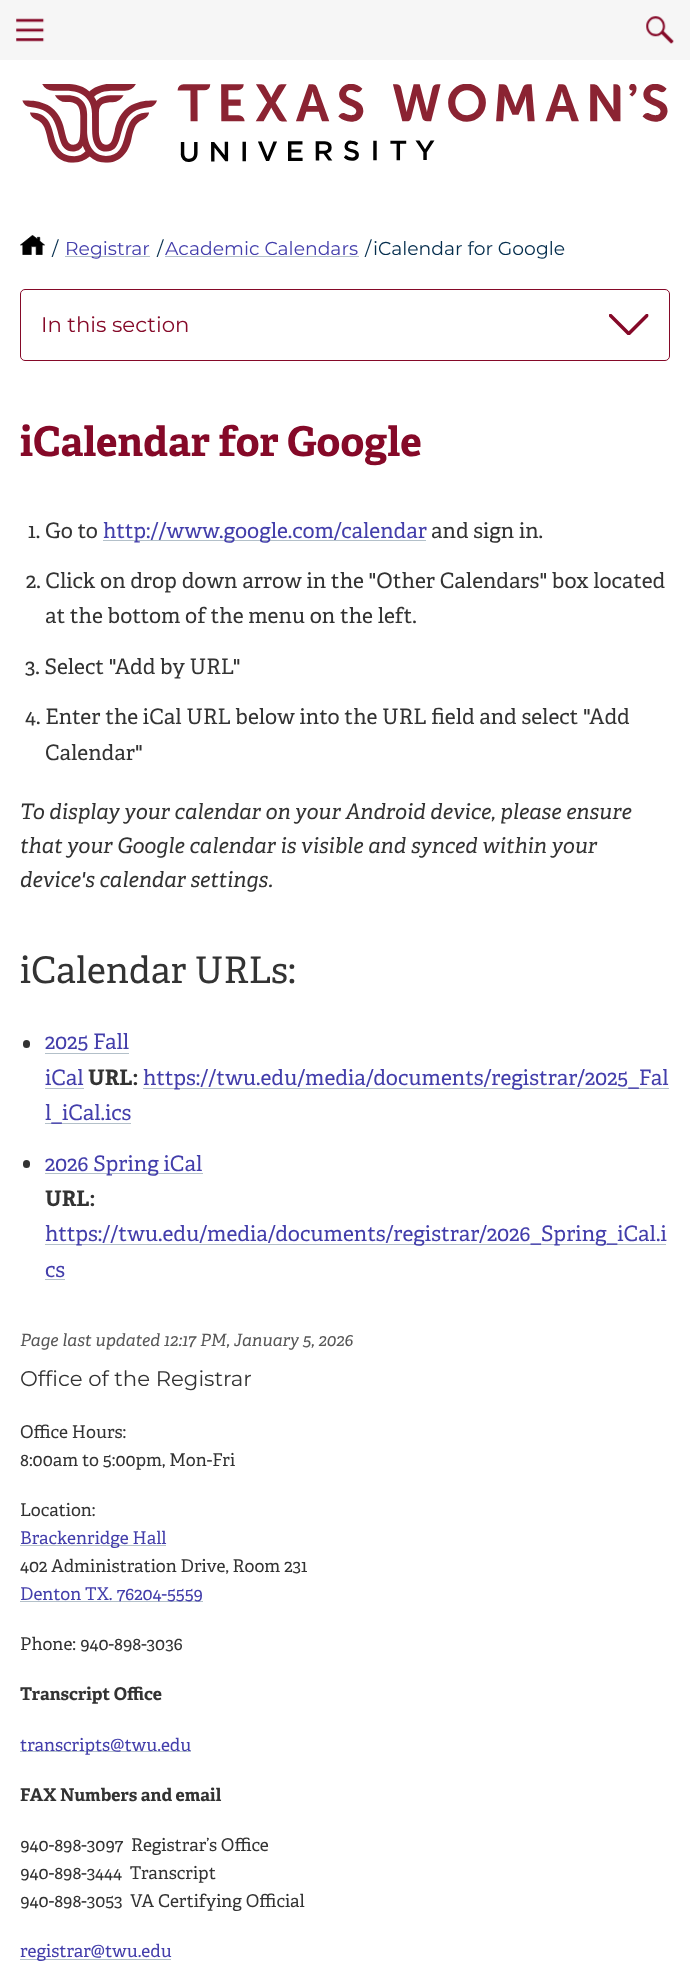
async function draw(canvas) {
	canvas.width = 690;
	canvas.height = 1983;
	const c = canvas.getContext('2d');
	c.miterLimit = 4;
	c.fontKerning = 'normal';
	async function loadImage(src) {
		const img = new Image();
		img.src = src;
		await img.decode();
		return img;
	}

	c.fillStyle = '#fff';
	c.fillRect(0, 0, 690, 1983);
	c.fillStyle = '#f6f6f6';
	c.fillRect(0, 0, 690, 60);
	c.drawImage(await loadImage('img1.png'), 16, 18, 29, 24);
	c.drawImage(await loadImage('img2.png'), 646, 16, 28, 28);
	c.drawImage(await loadImage('img3.png'), 22, 84, 646, 79);
	c.drawImage(await loadImage('img4.png'), 20, 235, 25, 20);
	c.font = '18.75px Montserrat';
	c.fillStyle = '#032c4c';
	c.fillText('/', 52, 255);
	c.fillStyle = '#b3c0c9';
	c.fillRect(65, 256, 85, 1);
	c.fillStyle = '#433eab';
	c.fillText('Registrar', 65, 255);
	c.fillStyle = '#032c4c';
	c.fillText('/', 157, 255);
	c.fillStyle = '#433eab';
	c.fillText('Academic Calendars', 165, 255);
	c.fillStyle = '#b3c0c9';
	c.fillRect(165, 256, 194, 1);
	c.fillStyle = '#032c4c';
	c.fillText('/', 365, 255);
	c.fillText('iCalendar for Google', 373, 255);
	c.beginPath();
	c.roundRect(20.5, 289.5, 649, 71, 4.5);
	c.strokeStyle = '#850928';
	c.stroke();
	c.font = '21.25px Montserrat';
	c.fillStyle = '#850928';
	c.fillText('In this section', 41, 332);
	c.drawImage(await loadImage('img5.png'), 609, 314, 40, 21);
	c.font = 'bold 40.9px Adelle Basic';
	c.fillText('iCalendar for Google', 20, 456);
	c.font = '21.25px Adelle Basic';
	c.fillStyle = '#333';
	c.fillText('1. Go to', 28, 538);
	c.fillStyle = '#b3c0c9';
	c.fillRect(103, 540, 323, 1);
	c.fillStyle = '#433eab';
	c.fillText('http://www.google.com/calendar', 103, 538);
	c.fillStyle = '#333';
	for (const [text, x, y] of [
		['and sign in.', 431, 538],
		['2. Click on drop down arrow in the "Other Calendars" box located', 26, 588],
		['at the bottom of the menu on the left.', 45, 623],
		['3. Select "Add by URL"', 25, 674],
		['4. Enter the iCal URL below into the URL field and select "Add', 25, 724],
		['Calendar"', 45, 760],
	]) {
		c.fillText(text, x, y);
	}
	c.font = 'italic 21.25px Adelle Basic';
	for (const [text, x, y] of [
		['To display your calendar on your Android device, please ensure', 20, 819],
		['that your Google calendar is visible and synced within your', 20, 853],
		['device\'s calendar settings.', 20, 887],
	]) {
		c.fillText(text, x, y);
	}
	c.font = '36.75px Adelle Basic';
	c.fillText('iCalendar URLs:', 20, 983);
	c.beginPath();
	c.roundRect(23, 1040, 7, 8, 3.5);
	c.fill();
	c.font = '21.25px Adelle Basic';
	c.fillStyle = '#433eab';
	c.fillText('2025 Fall', 45, 1049);
	c.fillStyle = '#b3c0c9';
	c.fillRect(45, 1053, 84, 1);
	c.fillStyle = '#433eab';
	c.fillText('iCal', 45, 1085);
	c.fillStyle = '#b3c0c9';
	c.fillRect(45, 1088, 39, 1);
	c.font = 'bold 21.25px Adelle Basic';
	c.fillStyle = '#333';
	c.fillText('URL:', 88, 1085);
	c.fillStyle = '#b3c0c9';
	c.fillRect(143, 1088, 526, 1);
	c.font = '21.25px Adelle Basic';
	c.fillStyle = '#433eab';
	c.fillText('https://twu.edu/media/documents/registrar/2025_Fal', 143, 1085);
	c.fillStyle = '#b3c0c9';
	c.fillRect(45, 1123, 86, 1);
	c.fillStyle = '#433eab';
	c.fillText('l_iCal.ics', 45, 1120);
	c.fillStyle = '#333';
	c.beginPath();
	c.roundRect(23, 1160, 7, 8, 3.5);
	c.fill();
	c.fillStyle = '#b3c0c9';
	c.fillRect(45, 1173, 158, 1);
	c.fillStyle = '#433eab';
	c.fillText('2026 Spring iCal', 45, 1171);
	c.font = 'bold 21.25px Adelle Basic';
	c.fillStyle = '#333';
	c.fillText('URL:', 45, 1206);
	c.fillStyle = '#b3c0c9';
	c.fillRect(45, 1244, 621, 1);
	c.font = '21.25px Adelle Basic';
	c.fillStyle = '#433eab';
	c.fillText('https://twu.edu/media/documents/registrar/2026_Spring_iCal.i', 45, 1241);
	c.fillText('cs', 45, 1277);
	c.fillStyle = '#b3c0c9';
	c.fillRect(45, 1279, 20, 1);
	c.font = 'italic 17px Adelle Basic';
	c.fillStyle = '#575757';
	c.fillText('Page last updated 12:17 PM, January 5, 2026', 20, 1346);
	c.font = '21.25px Montserrat';
	c.fillStyle = '#333';
	c.fillText('Office of the Registrar', 20, 1386);
	c.font = '17.5px Adelle Basic';
	for (const [text, x, y] of [
		['Office Hours:', 20, 1438],
		['8:00am to 5:00pm, Mon-Fri', 20, 1466],
		['Location:', 20, 1516],
	]) {
		c.fillText(text, x, y);
	}
	c.fillStyle = '#b3c0c9';
	c.fillRect(20, 1545, 146, 1);
	c.fillStyle = '#433eab';
	c.fillText('Brackenridge Hall', 20, 1544);
	c.fillStyle = '#333';
	c.fillText('402 Administration Drive, Room 231', 20, 1572);
	c.fillStyle = '#b3c0c9';
	c.fillRect(20, 1601, 183, 1);
	c.fillStyle = '#433eab';
	c.fillText('Denton TX. 76204-5559', 20, 1600);
	c.fillStyle = '#333';
	c.fillText('Phone: 940-898-3036', 20, 1650);
	c.font = 'bold 17.5px Adelle Basic';
	c.fillText('Transcript Office', 20, 1700);
	c.fillStyle = '#b3c0c9';
	c.fillRect(20, 1751, 171, 1);
	c.font = '17.5px Adelle Basic';
	c.fillStyle = '#433eab';
	c.fillText('transcripts@twu.edu', 20, 1751);
	c.font = 'bold 17.5px Adelle Basic';
	c.fillStyle = '#333';
	c.fillText('FAX Numbers and email', 20, 1801);
	c.font = '17.5px Adelle Basic';
	for (const [text, x, y] of [
		['940-898-3097  Registrar’s Office', 20, 1851],
		['940-898-3444  Transcript', 20, 1879],
		['940-898-3053  VA Certifying Official', 20, 1907],
	]) {
		c.fillText(text, x, y);
	}
	c.fillStyle = '#b3c0c9';
	c.fillRect(20, 1959, 151, 1);
	c.fillStyle = '#433eab';
	c.fillText('registrar@twu.edu', 20, 1957);
}

draw(document.querySelector('canvas'));
